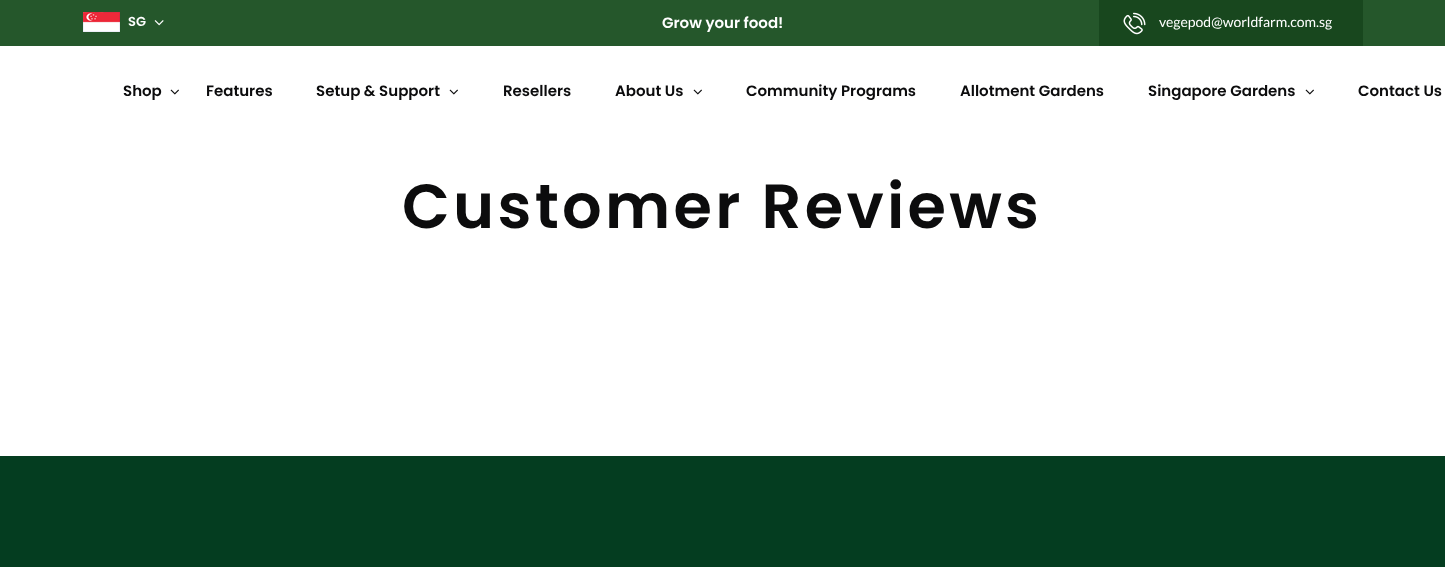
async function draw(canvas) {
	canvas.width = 1445;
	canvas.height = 567;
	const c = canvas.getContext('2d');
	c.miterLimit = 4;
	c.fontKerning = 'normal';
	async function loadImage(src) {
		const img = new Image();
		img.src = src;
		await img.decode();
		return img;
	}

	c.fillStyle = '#fff';
	c.fillRect(0, 0, 1445, 567);
	c.fillStyle = '#25572b';
	c.fillRect(0, 0, 1445, 46);
	c.drawImage(await loadImage('img1.png'), 83, 12, 37, 20);
	c.font = '600 13px Poppins';
	c.fillStyle = '#fff';
	c.fillText('SG', 128, 26);
	c.drawImage(await loadImage('img2.png'), 154, 20, 10, 6);
	c.font = '600 15px Poppins';
	c.fillText('Grow your food!', 662, 28);
	c.fillStyle = '#18471e';
	c.fillRect(1099, 0, 264, 46);
	c.drawImage(await loadImage('img3.png'), 1123, 12, 23, 23);
	c.font = '14px Lato';
	c.fillStyle = '#fff';
	c.fillText('vegepod@worldfarm.com.sg', 1159, 27);
	c.font = '600 15px Poppins';
	c.fillStyle = '#0c0c0d';
	c.fillText('Shop', 123, 96);
	c.drawImage(await loadImage('img4.png'), 170, 89, 9, 6);
	c.fillText('Features', 206, 96);
	c.fillText('Setup & Support', 316, 96);
	c.drawImage(await loadImage('img4.png'), 449, 89, 9, 6);
	c.fillText('Resellers', 503, 96);
	c.fillText('About Us', 615, 96);
	c.drawImage(await loadImage('img4.png'), 693, 89, 9, 6);
	for (const [text, x, y] of [
		['Community Programs', 746, 96],
		['Allotment Gardens', 960, 96],
		['Singapore Gardens', 1148, 96],
	]) {
		c.fillText(text, x, y);
	}
	c.drawImage(await loadImage('img4.png'), 1305, 89, 9, 6);
	c.fillText('Contact Us', 1358, 96);
	c.letterSpacing = '3.25px';
	c.font = '600 62.25px Poppins';
	c.fillText('Customer Reviews', 402, 228);
	c.fillStyle = '#043d20';
	c.fillRect(0, 456, 1445, 111);
}

draw(document.querySelector('canvas'));
